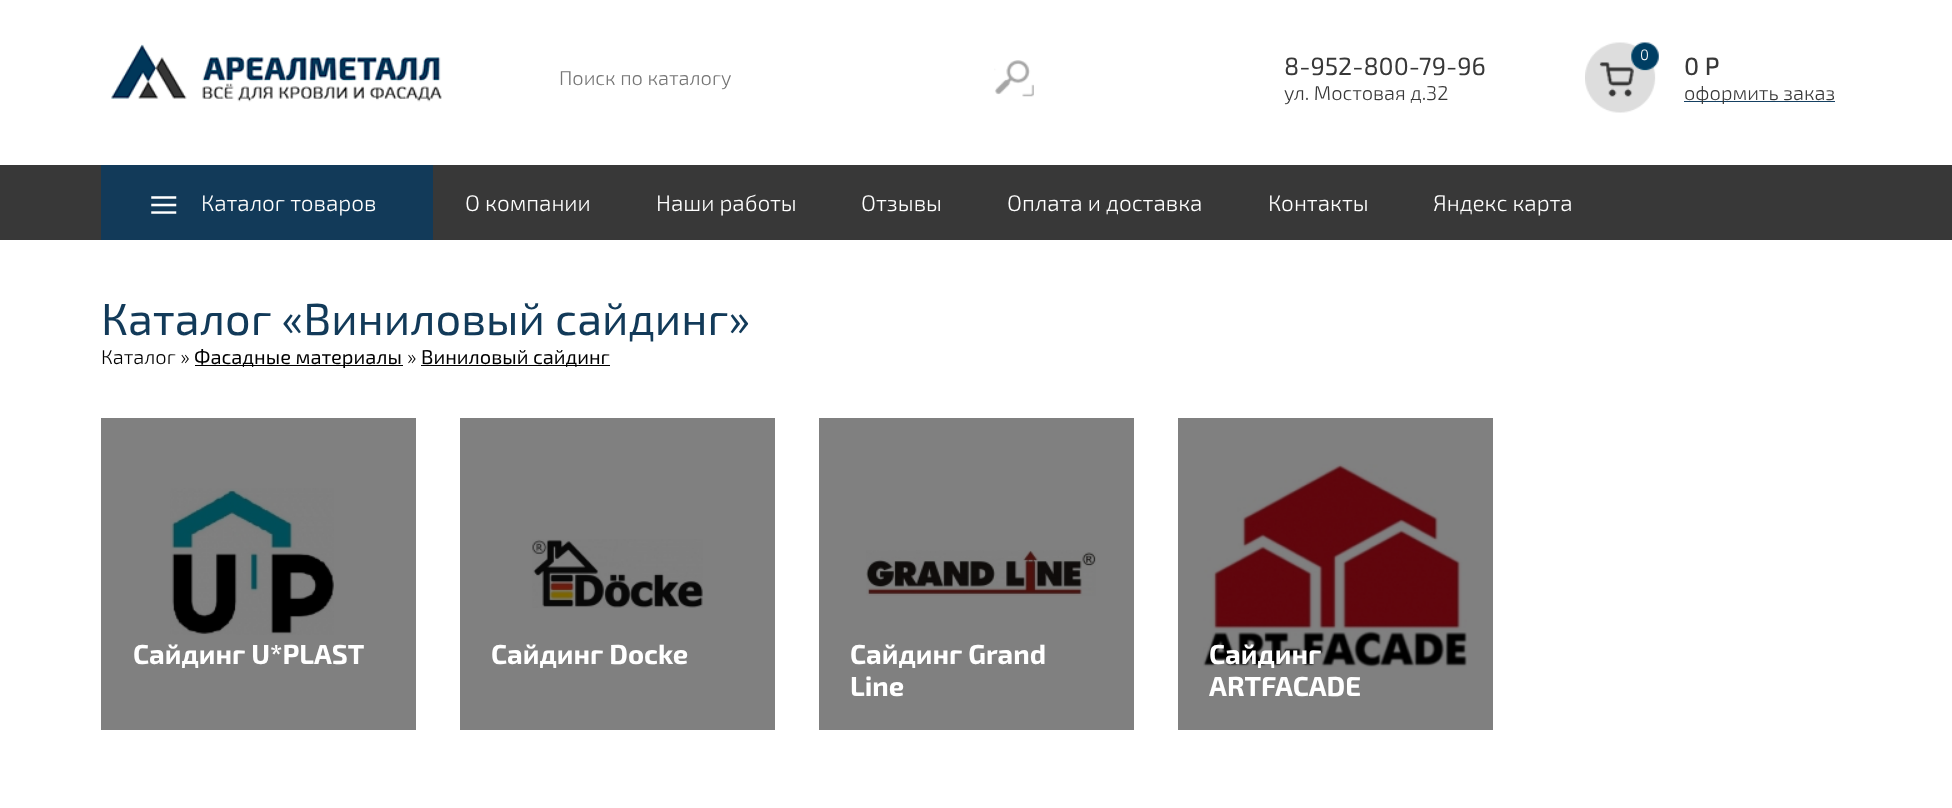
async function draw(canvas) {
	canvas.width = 1952;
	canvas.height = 808;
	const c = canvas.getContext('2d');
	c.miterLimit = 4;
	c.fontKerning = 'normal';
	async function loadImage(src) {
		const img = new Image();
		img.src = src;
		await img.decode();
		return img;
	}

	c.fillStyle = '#fff';
	c.fillRect(0, 0, 1952, 808);
	for (const [x, y, w, h, color] of [
		[1178, 418, 315, 312, '#808080'],
		[819, 418, 315, 312, '#808080'],
		[460, 418, 315, 312, '#808080'],
		[101, 418, 315, 312, '#808080'],
	]) {
		c.fillStyle = color;
		c.fillRect(x, y, w, h);
	}
	c.drawImage(await loadImage('img1.png'), 111, 44, 331, 58);
	c.drawImage(await loadImage('img2.png'), 1585, 42, 74, 71);
	c.font = '300 15px "Exo 2"';
	c.fillStyle = '#fff';
	c.fillText('0', 1640, 60);
	c.font = '300 20px "Exo 2"';
	c.fillStyle = '#757575';
	c.fillText('Поиск по каталогу', 559, 85);
	c.drawImage(await loadImage('img3.png'), 994, 60, 40, 37);
	c.font = '25px "Exo 2"';
	c.fillStyle = '#383838';
	c.fillText('8-952-800-79-96', 1284, 75);
	c.font = '300 20px "Exo 2"';
	c.fillText('ул. Мостовая д.32', 1284, 100);
	c.font = '500 25px "Exo 2"';
	c.fillText('0 Р', 1684, 75);
	c.fillStyle = '#154062';
	c.fillRect(1684, 101, 151, 1);
	c.font = '300 20px "Exo 2"';
	c.fillStyle = '#383838';
	c.fillText('оформить заказ', 1684, 100);
	c.fillRect(0, 165, 1952, 75);
	c.fillStyle = '#123a59';
	c.fillRect(101, 165, 332, 75);
	c.drawImage(await loadImage('img4.png'), 151, 196, 26, 18);
	c.font = '300 22.5px "Exo 2"';
	c.fillStyle = '#fff';
	for (const [text, x, y] of [
		['Каталог товаров', 201, 211],
		['О компании', 465, 211],
		['Наши работы', 656, 211],
		['Отзывы', 861, 211],
		['Оплата и доставка', 1007, 211],
		['Контакты', 1268, 211],
		['Яндекс карта', 1433, 211],
	]) {
		c.fillText(text, x, y);
	}
	c.font = '45px "Exo 2"';
	c.fillStyle = '#123a59';
	c.fillText('Каталог «Виниловый сайдинг»', 101, 335);
	c.font = '300 20px "Exo 2"';
	c.fillStyle = '#000';
	c.fillText('Каталог »', 101, 364);
	c.fillRect(195, 365, 208, 1);
	c.font = '20px "Exo 2"';
	c.fillText('Фасадные материалы', 194, 364);
	c.font = '300 20px "Exo 2"';
	c.fillText('»', 407, 364);
	c.fillRect(421, 365, 189, 1);
	c.font = '20px "Exo 2"';
	c.fillText('Виниловый сайдинг', 421, 364);
	c.drawImage(await loadImage('img5.png'), 170, 488, 164, 147);
	c.font = 'bold 27.5px "Exo 2"';
	c.fillStyle = '#fff';
	c.fillText('Сайдинг U*PLAST', 133, 664);
	c.drawImage(await loadImage('img6.png'), 532, 539, 171, 69);
	c.fillText('Сайдинг Docke', 491, 664);
	c.drawImage(await loadImage('img7.png'), 866, 550, 230, 46);
	c.fillText('Сайдинг Grand', 850, 664);
	c.fillText('Line', 850, 696);
	c.drawImage(await loadImage('img8.png'), 1203, 464, 264, 203);
	c.fillText('Сайдинг', 1209, 664);
	c.fillText('ARTFACADE', 1209, 696);
}

draw(document.querySelector('canvas'));
